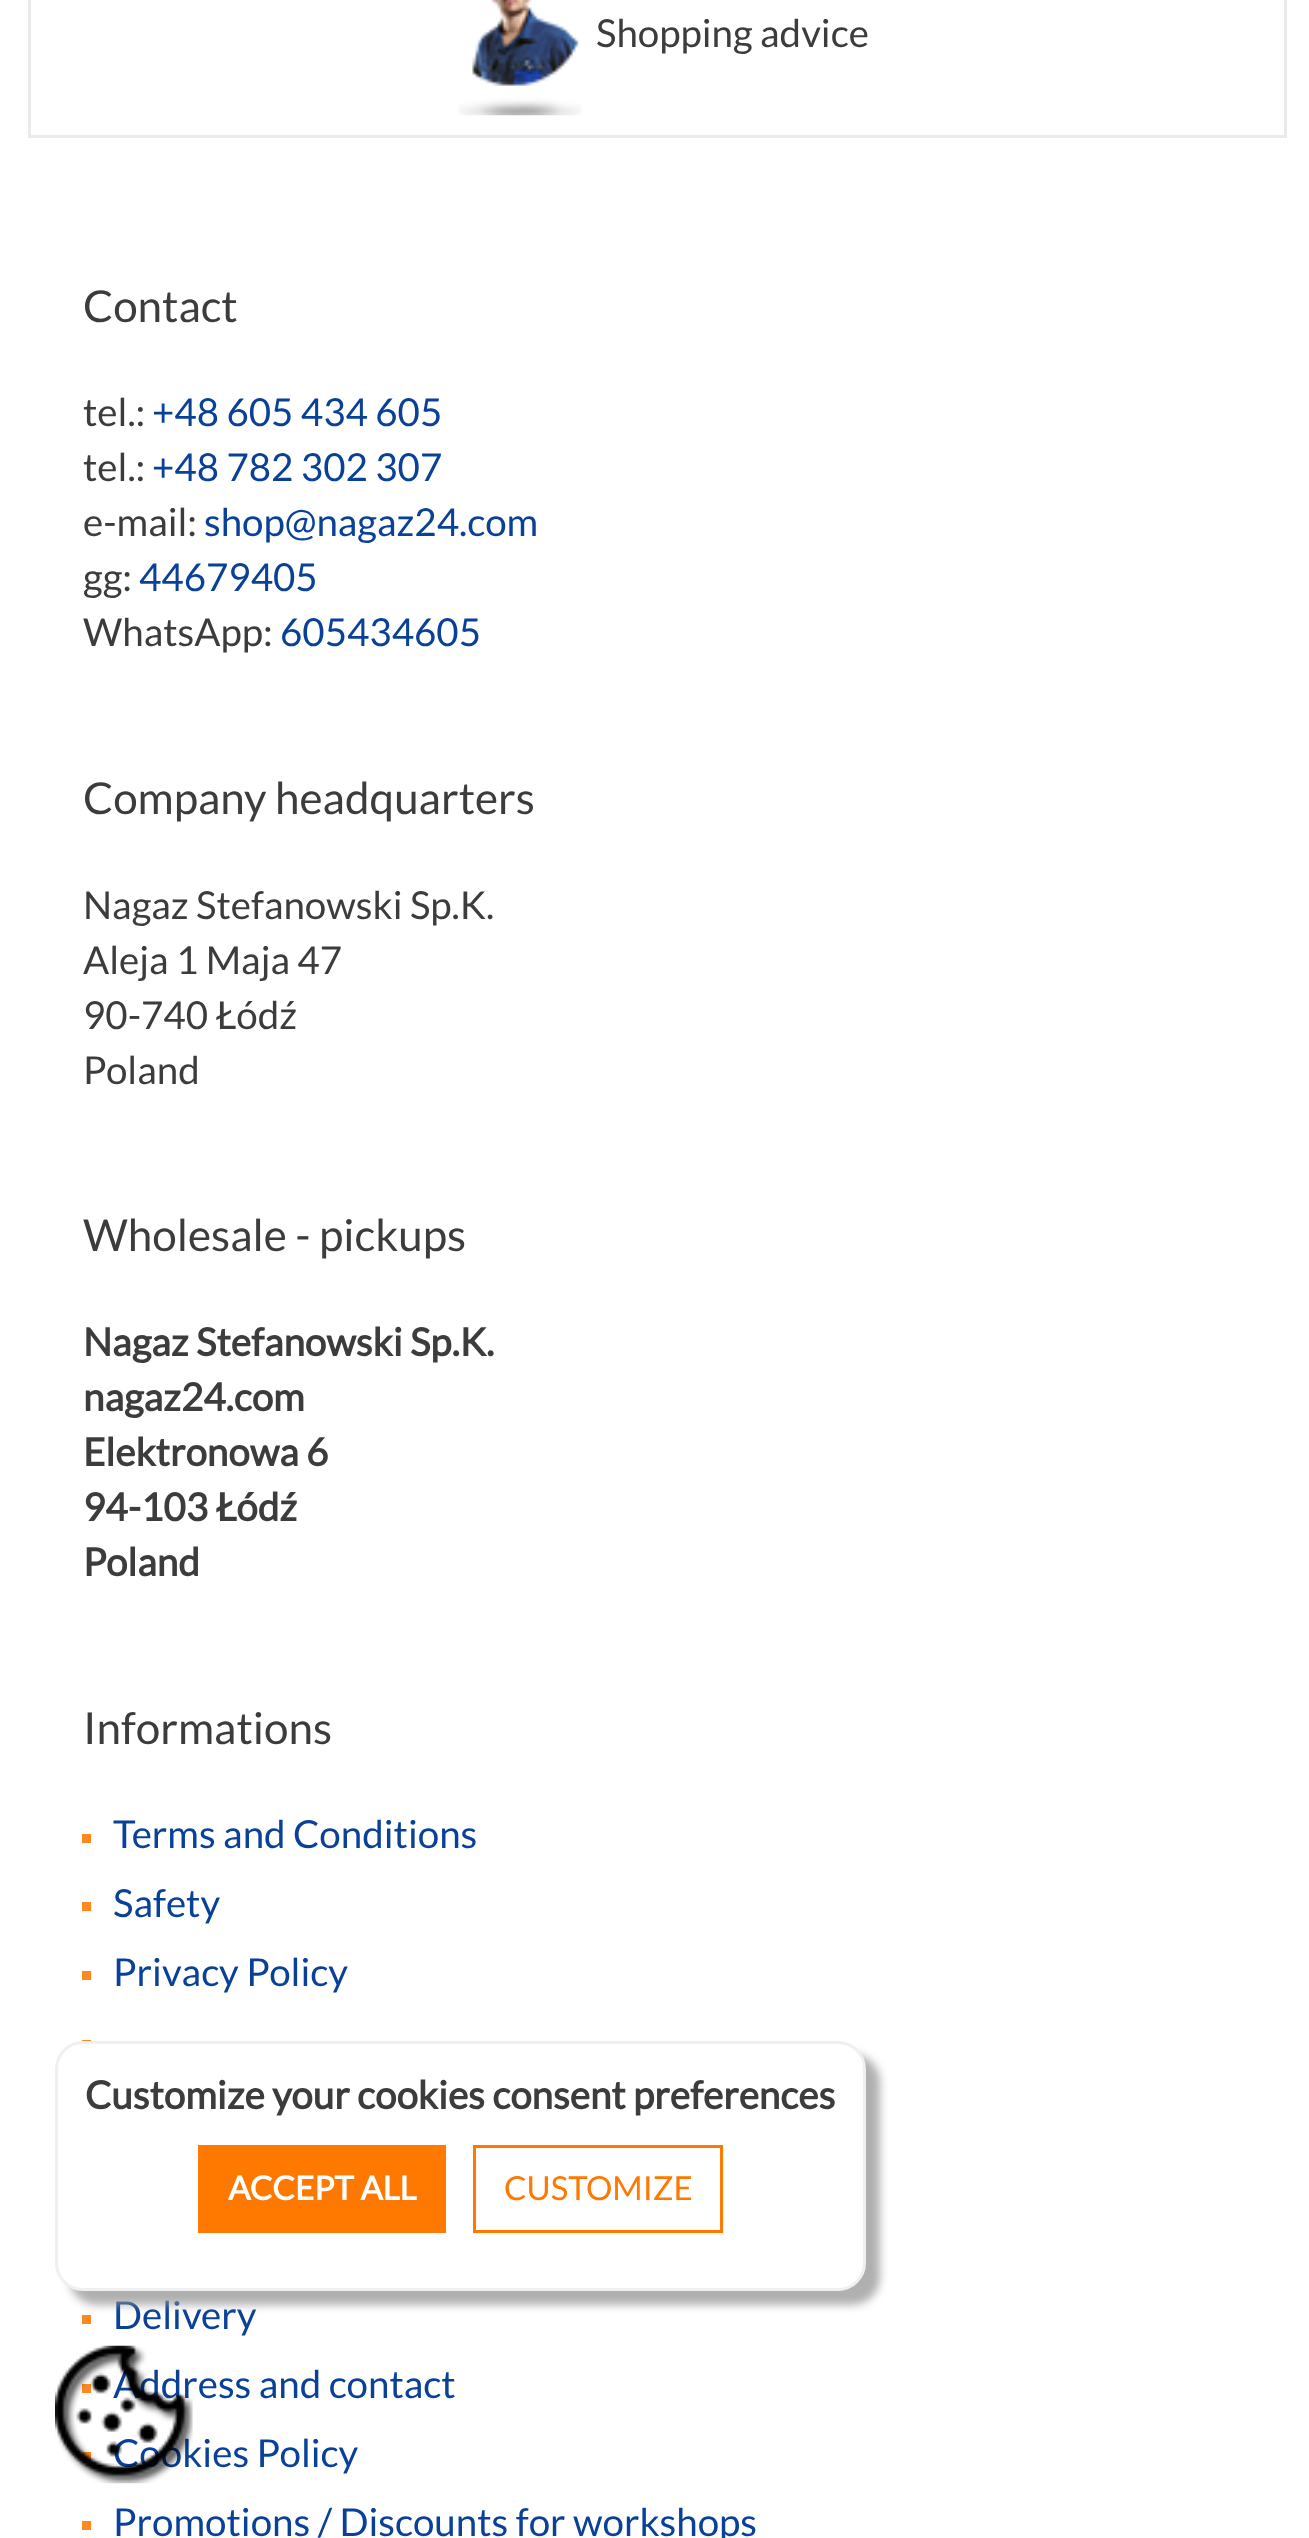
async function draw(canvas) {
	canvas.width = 1309;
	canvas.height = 2538;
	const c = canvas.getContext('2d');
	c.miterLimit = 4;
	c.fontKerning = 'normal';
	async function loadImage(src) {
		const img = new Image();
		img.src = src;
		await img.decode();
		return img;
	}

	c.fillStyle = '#fff';
	c.fillRect(0, 0, 1309, 2538);
	c.strokeStyle = '#eaeaea';
	c.lineWidth = 3;
	c.strokeRect(29.5, -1.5, 1256, 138);
	c.drawImage(await loadImage('img1.png'), 458, 0, 124, 116);
	c.font = '38.5px Lato';
	c.fillStyle = '#3c3c3c';
	c.fillText('Shopping advice', 596, 47);
	c.font = '44px Lato';
	c.fillText('Contact', 83, 322);
	c.font = '38.5px Lato';
	c.fillText('tel.:', 83, 426);
	c.fillStyle = '#094198';
	c.fillText('+48 605 434 605', 152, 426);
	c.fillStyle = '#3c3c3c';
	c.fillText('tel.:', 83, 481);
	c.fillStyle = '#094198';
	c.fillText('+48 782 302 307', 152, 481);
	c.fillStyle = '#3c3c3c';
	c.fillText('e-mail:', 83, 536);
	c.fillStyle = '#094198';
	c.fillText('shop@nagaz24.com', 204, 536);
	c.fillStyle = '#3c3c3c';
	c.fillText('gg:', 83, 591);
	c.fillStyle = '#094198';
	c.fillText('44679405', 139, 591);
	c.fillStyle = '#3c3c3c';
	c.fillText('WhatsApp:', 83, 646);
	c.fillStyle = '#094198';
	c.fillText('605434605', 280, 646);
	c.font = '44px Lato';
	c.fillStyle = '#3c3c3c';
	c.fillText('Company headquarters', 83, 814);
	c.font = '38.5px Lato';
	for (const [text, x, y] of [
		['Nagaz Stefanowski Sp.K.', 83, 919],
		['Aleja 1 Maja 47', 83, 974],
		['90-740 Łódź', 83, 1029],
		['Poland', 83, 1084],
	]) {
		c.fillText(text, x, y);
	}
	c.font = '44px Lato';
	c.fillText('Wholesale - pickups', 83, 1251);
	c.font = 'bold 38.5px Lato';
	for (const [text, x, y] of [
		['Nagaz Stefanowski Sp.K.', 83, 1356],
		['nagaz24.com', 83, 1411],
		['Elektronowa 6', 83, 1466],
		['94-103 Łódź', 83, 1521],
		['Poland', 83, 1576],
	]) {
		c.fillText(text, x, y);
	}
	c.font = '44px Lato';
	c.fillText('Informations', 83, 1744);
	c.fillStyle = '#ff8920';
	c.fillRect(82, 1834, 9, 9);
	c.font = '38.5px Lato';
	c.fillStyle = '#094198';
	c.fillText('Terms and Conditions', 113, 1848);
	c.fillStyle = '#ff8920';
	c.fillRect(82, 1902, 9, 9);
	c.fillStyle = '#094198';
	c.fillText('Safety', 113, 1917);
	c.fillStyle = '#ff8920';
	c.fillRect(82, 1971, 9, 9);
	c.fillStyle = '#094198';
	c.fillText('Privacy Policy', 113, 1986);
	c.fillStyle = '#ff8920';
	c.fillRect(82, 2040, 9, 2);
	c.fillRect(82, 2315, 9, 9);
	c.fillStyle = '#094198';
	c.fillText('Delivery', 113, 2329);
	c.fillStyle = '#ff8920';
	c.fillRect(82, 2384, 9, 9);
	c.fillStyle = '#094198';
	c.fillText('Address and contact', 113, 2398);
	c.fillStyle = '#ff8920';
	c.fillRect(82, 2452, 9, 9);
	c.fillStyle = '#094198';
	c.fillText('Cookies Policy', 113, 2467);
	c.fillStyle = '#ff8920';
	c.fillRect(82, 2521, 9, 9);
	c.fillStyle = '#094198';
	c.fillText('Promotions / Discounts for workshops', 113, 2536);
	c.fillStyle = '#969696bf';
	c.filter = 'blur(4px)';
	c.beginPath();
	c.roundRect(69, 2054, 811, 251, 28);
	c.fill();
	c.filter = 'none';
	c.fillStyle = '#fff';
	c.beginPath();
	c.roundRect(56.5, 2042.5, 808, 247, 26.5);
	c.fill();
	c.strokeStyle = '#f0f0f0';
	c.stroke();
	c.font = 'bold 38.5px Lato';
	c.fillStyle = '#3c3c3c';
	c.fillText('Customize your cookies consent preferences', 85, 2109);
	c.fillStyle = '#ff7800';
	c.fillRect(198, 2145, 248, 88);
	c.font = 'bold 33px Lato';
	c.fillStyle = '#fff';
	c.fillText('ACCEPT ALL', 228, 2200);
	c.strokeStyle = '#ff7800';
	c.strokeRect(474.5, 2146.5, 247, 85);
	c.font = '33px Lato';
	c.fillStyle = '#ff7800';
	c.fillText('CUSTOMIZE', 504, 2200);
	c.drawImage(await loadImage('img2.png'), 55, 2345, 138, 139);
}

draw(document.querySelector('canvas'));
